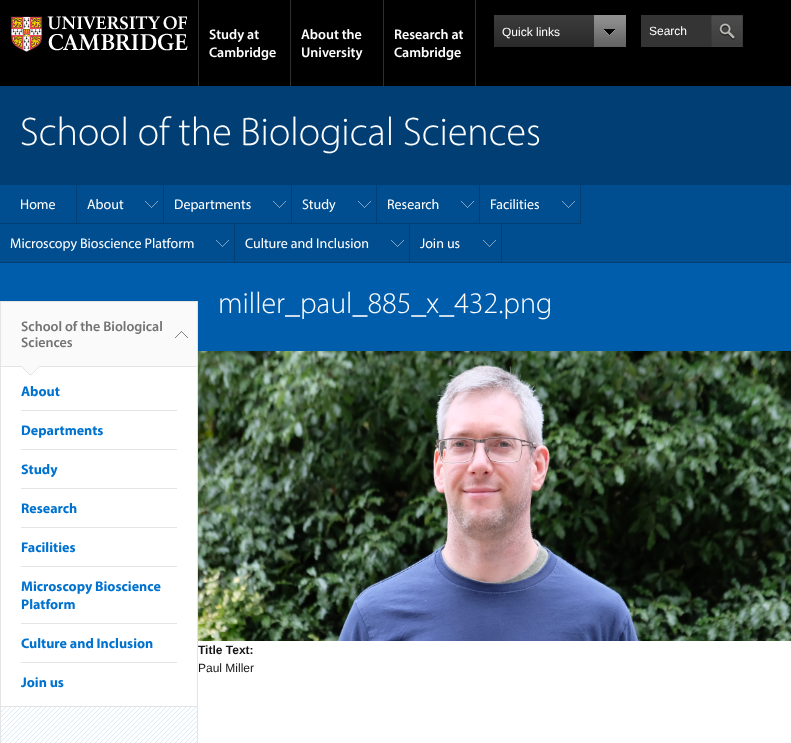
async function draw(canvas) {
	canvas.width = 791;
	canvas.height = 743;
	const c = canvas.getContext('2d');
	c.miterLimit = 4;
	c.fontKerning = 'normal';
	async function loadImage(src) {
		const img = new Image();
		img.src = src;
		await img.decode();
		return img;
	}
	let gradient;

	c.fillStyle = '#000';
	c.fillRect(0, 0, 791, 743);
	c.drawImage(await loadImage('img1.png'), 11, 16, 177, 36);
	c.fillStyle = '#2e2e2e';
	c.fillRect(198, 0, 1, 86);
	c.fillRect(290, 0, 1, 86);
	c.font = '600 14px Myriad';
	c.fillStyle = '#fff';
	c.fillText('Study at', 209, 39);
	c.fillText('Cambridge', 209, 57);
	c.fillStyle = '#2e2e2e';
	c.fillRect(383, 0, 1, 86);
	c.fillStyle = '#fff';
	c.fillText('About the', 301, 39);
	c.fillText('University', 301, 57);
	c.fillStyle = '#2e2e2e';
	c.fillRect(475, 0, 1, 86);
	c.fillStyle = '#fff';
	c.fillText('Research at', 394, 39);
	c.fillText('Cambridge', 394, 57);
	gradient = c.createLinearGradient(560, 15, 560, 47);
	gradient.addColorStop(0, '#3d3d3d');
	gradient.addColorStop(1, '#292929');
	c.fillStyle = gradient;
	c.fillRect(494, 15, 100, 32);
	c.font = '12px Liberation Sans';
	c.fillStyle = '#fff';
	c.fillText('Quick links', 502, 36);
	c.drawImage(await loadImage('img2.png'), 594, 15, 32, 32);
	c.fillStyle = '#343434';
	c.fillRect(641, 15, 70, 32);
	c.fillStyle = '#fff';
	c.fillText('Search', 649, 35);
	c.drawImage(await loadImage('img3.png'), 711, 15, 32, 32);
	c.fillStyle = '#003e74';
	c.fillRect(0, 86, 791, 98);
	c.font = '300 40px Myriad';
	c.fillStyle = '#fff';
	c.fillText('School of the Biological Sciences', 20, 145);
	for (const [x, y, w, h, color] of [
		[502, 185, 289, 77, '#004e8f'],
		[581, 184, 210, 1, '#003e74'],
		[502, 262, 289, 1, '#003e74'],
		[0, 185, 76, 38, '#004e8f'],
		[0, 184, 581, 1, '#003e74'],
		[76, 184, 1, 40, '#003e74'],
	]) {
		c.fillStyle = color;
		c.fillRect(x, y, w, h);
	}
	c.font = '14px Myriad';
	c.fillStyle = '#fff';
	c.fillText('Home', 20, 209);
	c.fillStyle = '#004e8f';
	c.fillRect(77, 185, 86, 38);
	c.drawImage(await loadImage('img4.png'), 145, 201, 13, 7);
	c.fillStyle = '#003e74';
	c.fillRect(163, 184, 1, 40);
	c.fillStyle = '#fff';
	c.fillText('About', 87, 209);
	c.fillStyle = '#004e8f';
	c.fillRect(164, 185, 127, 38);
	c.drawImage(await loadImage('img4.png'), 273, 201, 13, 7);
	c.fillStyle = '#003e74';
	c.fillRect(291, 184, 1, 40);
	c.fillStyle = '#fff';
	c.fillText('Departments', 174, 209);
	c.fillStyle = '#004e8f';
	c.fillRect(292, 185, 84, 38);
	c.drawImage(await loadImage('img4.png'), 358, 201, 13, 7);
	c.fillStyle = '#003e74';
	c.fillRect(376, 184, 1, 40);
	c.fillStyle = '#fff';
	c.fillText('Study', 302, 209);
	c.fillStyle = '#004e8f';
	c.fillRect(377, 185, 102, 38);
	c.drawImage(await loadImage('img4.png'), 461, 201, 13, 7);
	c.fillStyle = '#003e74';
	c.fillRect(479, 184, 1, 40);
	c.fillStyle = '#fff';
	c.fillText('Research', 387, 209);
	c.fillStyle = '#004e8f';
	c.fillRect(480, 185, 22, 38);
	c.drawImage(await loadImage('img4.png'), 562, 201, 13, 7);
	c.fillStyle = '#003e74';
	c.fillRect(580, 184, 1, 40);
	c.fillRect(502, 223, 79, 1);
	c.fillStyle = '#fff';
	c.fillText('Facilities', 490, 209);
	c.fillStyle = '#004e8f';
	c.fillRect(0, 224, 234, 38);
	c.drawImage(await loadImage('img4.png'), 216, 240, 13, 7);
	for (const [x, y, w, h, color] of [
		[0, 223, 502, 1, '#003e74'],
		[234, 223, 1, 40, '#003e74'],
		[0, 262, 235, 1, '#003e74'],
	]) {
		c.fillStyle = color;
		c.fillRect(x, y, w, h);
	}
	c.fillStyle = '#fff';
	c.fillText('Microscopy Bioscience Platform', 10, 248);
	c.fillStyle = '#004e8f';
	c.fillRect(235, 224, 174, 38);
	c.drawImage(await loadImage('img4.png'), 391, 240, 13, 7);
	c.fillStyle = '#003e74';
	c.fillRect(409, 223, 1, 40);
	c.fillRect(235, 262, 175, 1);
	c.fillStyle = '#fff';
	c.fillText('Culture and Inclusion', 245, 248);
	c.fillStyle = '#004e8f';
	c.fillRect(410, 224, 91, 38);
	c.drawImage(await loadImage('img4.png'), 483, 240, 13, 7);
	c.fillStyle = '#003e74';
	c.fillRect(501, 223, 1, 40);
	c.fillRect(410, 262, 92, 1);
	c.fillStyle = '#fff';
	c.fillText('Join us', 420, 248);
	c.fillStyle = '#005dab';
	c.fillRect(0, 263, 791, 88);
	c.font = '300 30px Myriad';
	c.fillStyle = '#fff';
	c.fillText('miller_paul_885_x_432.png', 218, 313);
	c.fillRect(1, 641, 790, 102);
	c.drawImage(await loadImage('img5.png'), 1, 707, 196, 36);
	c.fillStyle = '#e4e4e4';
	c.fillRect(0, 301, 198, 1);
	c.font = 'bold 12px Liberation Sans';
	c.fillStyle = '#171717';
	c.fillText('Title Text:', 198, 654);
	for (const [x, y, w, h, color] of [
		[197, 301, 1, 442, '#e4e4e4'],
		[0, 301, 1, 442, '#e4e4e4'],
		[1, 367, 196, 274, '#fff'],
		[1, 706, 196, 1, '#e4e4e4'],
		[1, 302, 196, 64, '#fafafa'],
	]) {
		c.fillStyle = color;
		c.fillRect(x, y, w, h);
	}
	c.drawImage(await loadImage('img6.png'), 175, 331, 13, 7);
	c.fillStyle = '#e4e4e4';
	c.fillRect(1, 366, 196, 1);
	c.font = '600 14px Myriad';
	c.fillStyle = '#737373';
	c.fillText('School of the Biological', 21, 331);
	c.fillText('Sciences', 21, 347);
	c.drawImage(await loadImage('img7.png'), 22, 366, 17, 9);
	c.fillStyle = '#e4e4e4';
	c.fillRect(21, 410, 156, 1);
	c.font = 'bold 14px Myriad';
	c.fillStyle = '#0072cf';
	c.fillText('About', 21, 396);
	c.fillStyle = '#e4e4e4';
	c.fillRect(21, 449, 156, 1);
	c.fillStyle = '#0072cf';
	c.fillText('Departments', 21, 435);
	c.fillStyle = '#e4e4e4';
	c.fillRect(21, 488, 156, 1);
	c.fillStyle = '#0072cf';
	c.fillText('Study', 21, 474);
	c.fillStyle = '#e4e4e4';
	c.fillRect(21, 527, 156, 1);
	c.fillStyle = '#0072cf';
	c.fillText('Research', 21, 513);
	c.fillStyle = '#e4e4e4';
	c.fillRect(21, 566, 156, 1);
	c.fillStyle = '#0072cf';
	c.fillText('Facilities', 21, 552);
	c.fillStyle = '#e4e4e4';
	c.fillRect(21, 623, 156, 1);
	c.fillStyle = '#0072cf';
	c.fillText('Microscopy Bioscience', 21, 591);
	c.fillText('Platform', 21, 609);
	c.fillStyle = '#e4e4e4';
	c.fillRect(21, 662, 156, 1);
	c.fillStyle = '#0072cf';
	c.fillText('Culture and Inclusion', 21, 648);
	c.fillText('Join us', 21, 687);
	c.drawImage(await loadImage('img8.png'), 198, 351, 593, 290);
	c.font = '12px Liberation Sans';
	c.fillStyle = '#171717';
	c.fillText('Paul Miller', 198, 672);
}

draw(document.querySelector('canvas'));
